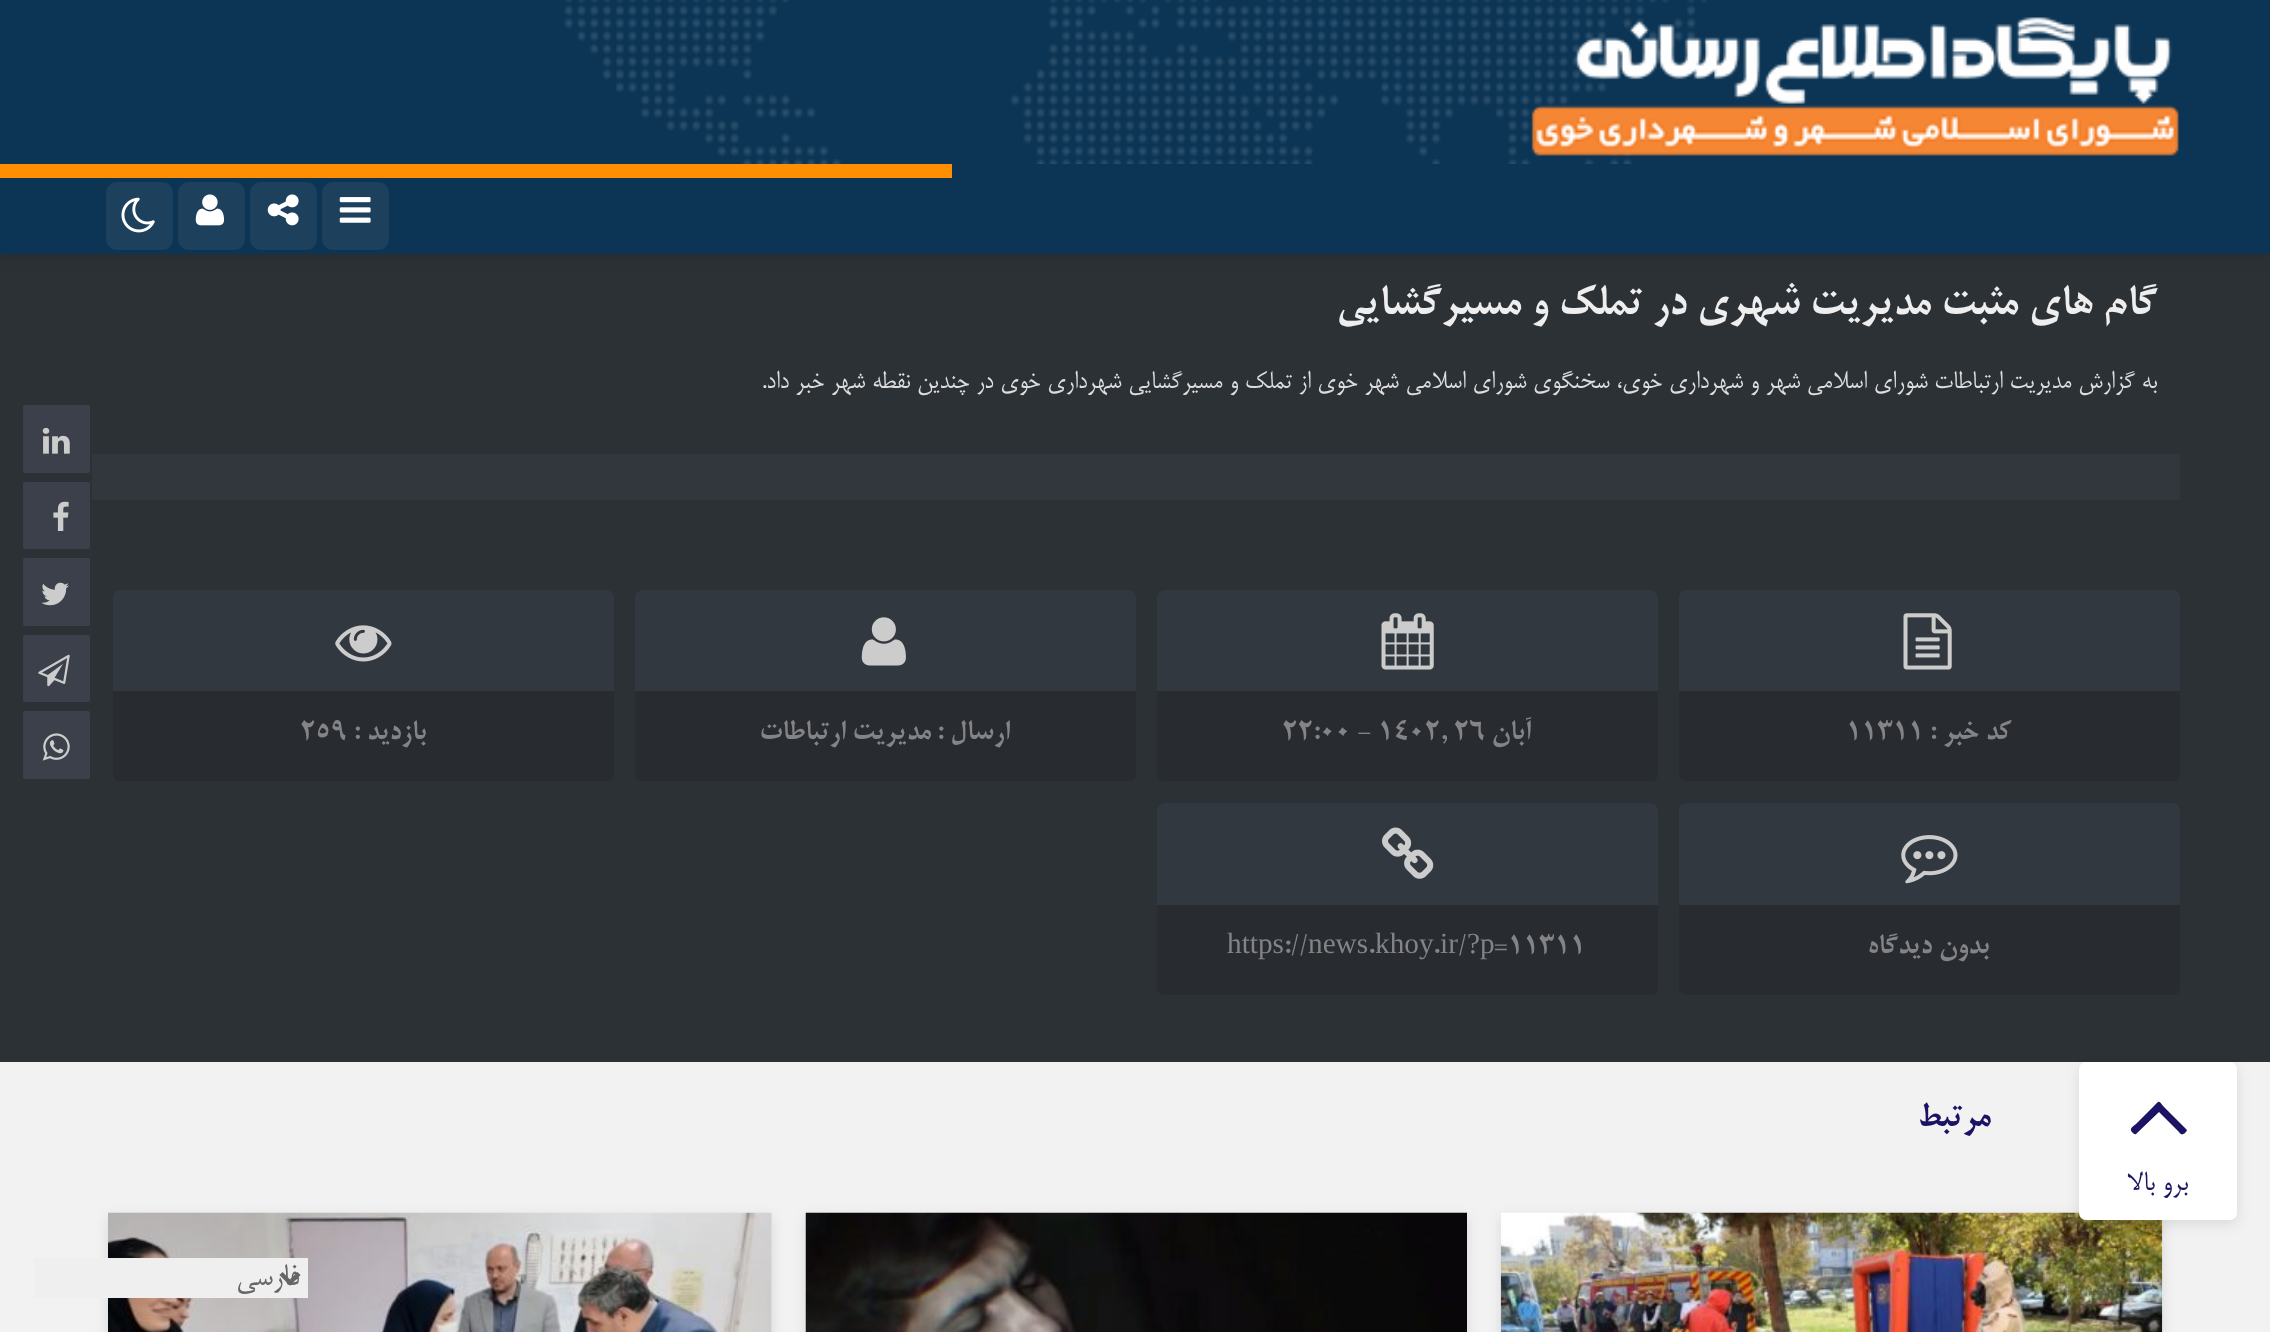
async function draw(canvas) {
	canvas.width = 2270;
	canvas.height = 1332;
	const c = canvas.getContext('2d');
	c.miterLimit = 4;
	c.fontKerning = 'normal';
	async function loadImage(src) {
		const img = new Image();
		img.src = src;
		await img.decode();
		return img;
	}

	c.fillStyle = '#f2f2f2';
	c.fillRect(0, 0, 2270, 1332);
	c.fillStyle = '#2c3136';
	c.fillRect(0, 254, 2270, 808);
	c.fillStyle = '#0000001a';
	c.filter = 'blur(9px)';
	c.beginPath();
	c.rect(0, -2, 2270, 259);
	c.fill();
	c.filter = 'none';
	c.fillStyle = '#0c3555';
	c.fillRect(0, 0, 2270, 254);
	c.drawImage(await loadImage('img1.png'), 564, 0, 1143, 164);
	c.drawImage(await loadImage('img2.png'), 1531, 17, 648, 139);
	c.fillStyle = '#fe8f00';
	c.fillRect(0, 164, 952, 14);
	c.fillStyle = '#1d405c';
	c.beginPath();
	c.roundRect(322, 182, 67, 68, 11);
	c.fill();
	c.drawImage(await loadImage('img3.png'), 339, 197, 32, 26);
	c.beginPath();
	c.roundRect(250, 182, 67, 68, 11);
	c.fill();
	c.drawImage(await loadImage('img4.png'), 267, 194, 32, 32);
	c.beginPath();
	c.roundRect(178, 182, 67, 68, 11);
	c.fill();
	c.drawImage(await loadImage('img5.png'), 195, 194, 29, 32);
	c.beginPath();
	c.roundRect(106, 182, 67, 68, 11);
	c.fill();
	c.drawImage(await loadImage('img6.png'), 121, 197, 34, 36);
	c.direction = 'rtl';
	c.font = 'bold 45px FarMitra';
	c.fillStyle = '#eee';
	c.fillText('گام های مثبت مدیریت شهری در تملک و مسیرگشایی', 2157, 314);
	c.font = '29.25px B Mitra';
	c.fillStyle = '#ddd';
	c.fillText('به گزارش مدیریت ارتباطات شورای اسلامی شهر و شهرداری خوی، سخنگوی شورای اسلامی شهر خوی از تملک و مسیرگشایی شهرداری خوی در چندین نقطه شهر خبر داد.', 2157, 388);
	c.fillStyle = '#32373d';
	c.fillRect(92, 454, 2088, 46);
	c.fillStyle = '#3b404b';
	c.beginPath();
	c.roundRect(23, 405, 67, 68, 2);
	c.fill();
	c.drawImage(await loadImage('img7.png'), 42, 427, 28, 27);
	c.beginPath();
	c.roundRect(23, 482, 67, 67, 2);
	c.fill();
	c.drawImage(await loadImage('img8.png'), 53, 501, 16, 30);
	c.beginPath();
	c.roundRect(23, 558, 67, 68, 2);
	c.fill();
	c.drawImage(await loadImage('img9.png'), 41, 582, 28, 24);
	c.beginPath();
	c.roundRect(23, 635, 67, 67, 2);
	c.fill();
	c.drawImage(await loadImage('img10.png'), 38, 654, 32, 33);
	c.beginPath();
	c.roundRect(23, 711, 67, 68, 2);
	c.fill();
	c.drawImage(await loadImage('img11.png'), 42, 733, 28, 28);
	c.fillStyle = '#282c31';
	c.beginPath();
	c.roundRect(1679, 590, 501, 191, 7);
	c.fill();
	c.fillStyle = '#32383f';
	c.beginPath();
	c.roundRect(1679, 590, 501, 101, [7, 7, 0, 0]);
	c.fill();
	c.drawImage(await loadImage('img12.png'), 1903, 613, 49, 57);
	c.font = 'bold 29.25px B Mitra';
	c.fillStyle = '#848385';
	c.fillText('کد خبر :', 2011, 739);
	c.direction = 'ltr';
	c.fillText('۱۱۳۱۱', 1846, 739);
	c.fillStyle = '#282c31';
	c.beginPath();
	c.roundRect(1157, 590, 501, 191, 7);
	c.fill();
	c.fillStyle = '#32383f';
	c.beginPath();
	c.roundRect(1157, 590, 501, 101, [7, 7, 0, 0]);
	c.fill();
	c.drawImage(await loadImage('img13.png'), 1381, 613, 53, 57);
	c.direction = 'rtl';
	c.fillStyle = '#848385';
	c.fillText('آبان', 1531, 739);
	c.direction = 'ltr';
	c.fillText('۲۲:۰۰ - ۱۴۰۲, ۲۶', 1282, 739);
	c.fillStyle = '#282c31';
	c.beginPath();
	c.roundRect(635, 590, 501, 191, 7);
	c.fill();
	c.fillStyle = '#32383f';
	c.beginPath();
	c.roundRect(635, 590, 501, 101, [7, 7, 0, 0]);
	c.fill();
	c.drawImage(await loadImage('img14.png'), 861, 617, 45, 49);
	c.direction = 'rtl';
	c.fillStyle = '#848385';
	c.fillText('ارسال :', 1010, 739);
	c.fillText('مدیریت ارتباطات', 931, 739);
	c.fillStyle = '#282c31';
	c.beginPath();
	c.roundRect(113, 590, 501, 191, 7);
	c.fill();
	c.fillStyle = '#32383f';
	c.beginPath();
	c.roundRect(113, 590, 501, 101, [7, 7, 0, 0]);
	c.fill();
	c.drawImage(await loadImage('img15.png'), 335, 625, 57, 37);
	c.fillStyle = '#848385';
	c.fillText('بازدید :', 426, 739);
	c.direction = 'ltr';
	c.fillText('۲۵۹', 300, 739);
	c.fillStyle = '#282c31';
	c.beginPath();
	c.roundRect(1679, 803, 501, 192, 7);
	c.fill();
	c.fillStyle = '#32383f';
	c.beginPath();
	c.roundRect(1679, 803, 501, 102, [7, 7, 0, 0]);
	c.fill();
	c.drawImage(await loadImage('img16.png'), 1901, 835, 57, 49);
	c.direction = 'rtl';
	c.fillStyle = '#848385';
	c.fillText('بدون دیدگاه', 1989, 953);
	c.fillStyle = '#282c31';
	c.beginPath();
	c.roundRect(1157, 803, 501, 192, 7);
	c.fill();
	c.fillStyle = '#32383f';
	c.beginPath();
	c.roundRect(1157, 803, 501, 102, [7, 7, 0, 0]);
	c.fill();
	c.drawImage(await loadImage('img17.png'), 1382, 827, 52, 52);
	c.direction = 'ltr';
	c.fillStyle = '#848385';
	c.fillText('=11311', 1494, 953);
	c.font = '29.25px Liberation Serif';
	c.fillText('?p', 1467, 953);
	c.font = 'bold 29.25px B Mitra';
	c.fillText('/', 1458, 953);
	c.font = '29.25px Liberation Serif';
	c.fillText('ir', 1440, 953);
	c.font = 'bold 29.25px B Mitra';
	c.fillText('.', 1433, 953);
	c.font = '29.25px Liberation Serif';
	c.fillText('khoy', 1375, 953);
	c.font = 'bold 29.25px B Mitra';
	c.fillText('.', 1368, 953);
	c.font = '29.25px Liberation Serif';
	c.fillText('news', 1308, 953);
	c.font = 'bold 29.25px B Mitra';
	c.fillText('://', 1284, 953);
	c.font = '29.25px Liberation Serif';
	c.fillText('https', 1227, 953);
	c.direction = 'rtl';
	c.font = 'bold 36px FarMitra';
	c.fillStyle = '#1b1464';
	c.fillText('مرتبط', 1991, 1126);
	c.fillStyle = '#0000001a';
	c.filter = 'blur(7px)';
	c.beginPath();
	c.rect(1501, 1217, 661, 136);
	c.fill();
	c.filter = 'none';
	c.drawImage(await loadImage('img18.png'), 1500, 1212, 663, 120);
	c.filter = 'blur(7px)';
	c.beginPath();
	c.rect(806, 1217, 661, 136);
	c.fill();
	c.filter = 'none';
	c.drawImage(await loadImage('img19.png'), 805, 1212, 662, 120);
	c.filter = 'blur(7px)';
	c.beginPath();
	c.rect(108, 1217, 664, 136);
	c.fill();
	c.filter = 'none';
	c.fillStyle = '#eee';
	c.fillRect(771, 1213, 1, 119);
	c.drawImage(await loadImage('img20.png'), 108, 1212, 664, 120);
	c.fillStyle = '#0000001a';
	c.filter = 'blur(7px)';
	c.beginPath();
	c.roundRect(2079, 1067, 158, 157, 7);
	c.fill();
	c.filter = 'none';
	c.fillStyle = '#fff';
	c.beginPath();
	c.roundRect(2079, 1062, 158, 158, 7);
	c.fill();
	c.fillStyle = '#1b1464';
	c.beginPath();
	c.moveTo(2186, 1129);
	c.bezierCurveTo(2188, 1130, 2186, 1132, 2185, 1133);
	c.bezierCurveTo(2181, 1136, 2181, 1134, 2177, 1130);
	c.lineTo(2159, 1112);
	c.lineTo(2136, 1134);
	c.bezierCurveTo(2135, 1135, 2133, 1133, 2133, 1133);
	c.bezierCurveTo(2129, 1129, 2131, 1128, 2136, 1124);
	c.lineTo(2153, 1107);
	c.bezierCurveTo(2160, 1100, 2158, 1100, 2164, 1107);
	c.closePath();
	c.fill();
	c.font = '32px B Mitra';
	c.fillText('برو بالا', 2188, 1190);
	c.fillStyle = '#efefef';
	c.fillRect(34, 1258, 274, 40);
	c.beginPath();
	c.moveTo(281, 1273.5);
	c.lineTo(290, 1282.5);
	c.lineTo(299, 1273.5);
	c.strokeStyle = '#666';
	c.lineWidth = 4.5;
	c.stroke();
	c.save();
	c.beginPath();
	c.rect(70, 1258, 229, 40);
	c.clip();
	c.font = '36px B Mitra';
	c.fillStyle = '#666';
	c.fillText('فارسی', 299, 1285);
	c.restore();
}

draw(document.querySelector('canvas'));
